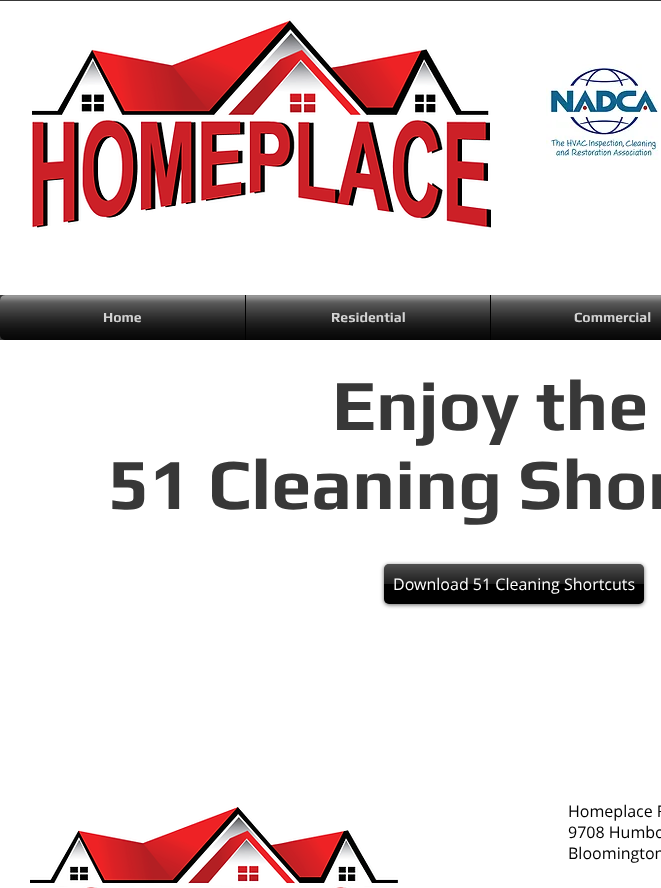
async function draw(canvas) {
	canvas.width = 661;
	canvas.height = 888;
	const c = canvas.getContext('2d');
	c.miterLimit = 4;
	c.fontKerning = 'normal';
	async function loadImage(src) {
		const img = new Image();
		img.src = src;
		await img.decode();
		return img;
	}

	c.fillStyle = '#fff';
	c.fillRect(0, 0, 661, 888);
	c.fillStyle = '#383838';
	c.fillRect(0, 0, 661, 1);
	c.drawImage(await loadImage('img1.png'), 32, 18, 459, 212);
	c.drawImage(await loadImage('img2.png'), 546, 64, 113, 96);
	c.fillRect(0, 295, 5, 45);
	c.drawImage(await loadImage('img3.png'), 0, 295, 5, 45);
	c.fillStyle = '#000';
	c.beginPath();
	c.roundRect(0, 295, 245, 45, [5, 0, 0, 5]);
	c.fill();
	c.font = 'bold 14px Play';
	c.fillStyle = '#d9d9d9';
	c.fillText('Home', 103, 322);
	c.drawImage(await loadImage('img4.png'), 0, 295, 245, 45);
	c.drawImage(await loadImage('img5.png'), 104, 313, 37, 10);
	c.fillStyle = '#000';
	c.fillRect(245, 295, 416, 45);
	c.fillStyle = '#d9d9d9';
	c.fillText('Residential', 331, 322);
	c.drawImage(await loadImage('img6.png'), 246, 295, 244, 45);
	c.drawImage(await loadImage('img7.png'), 331, 312, 74, 11);
	c.fillText('Commercial', 574, 322);
	c.drawImage(await loadImage('img8.png'), 491, 295, 170, 45);
	c.drawImage(await loadImage('img9.png'), 575, 312, 76, 11);
	c.font = 'bold 72px Play';
	c.fillStyle = '#383838';
	c.fillText('Enjoy the', 332, 430);
	c.fillText('51 Cleaning Shor', 108, 509);
	c.fillStyle = '#00000099';
	c.filter = 'blur(2px)';
	c.beginPath();
	c.roundRect(384, 565, 260, 40, 5);
	c.fill();
	c.filter = 'none';
	c.fillStyle = '#000';
	c.beginPath();
	c.roundRect(384, 564, 260, 40, 5);
	c.fill();
	c.drawImage(await loadImage('img10.png'), 384, 564, 260, 20);
	c.font = '16px Open Sans';
	c.fillStyle = '#fff';
	c.fillText('Download 51 Cleaning Shortcuts', 393, 590);
	c.drawImage(await loadImage('img11.png'), 30, 806, 368, 82);
	c.fillStyle = '#000';
	for (const [text, x, y] of [
		['Homeplace F', 568, 817],
		['9708 Humbo', 568, 838],
		['Bloomington', 568, 859],
	]) {
		c.fillText(text, x, y);
	}
}

draw(document.querySelector('canvas'));
